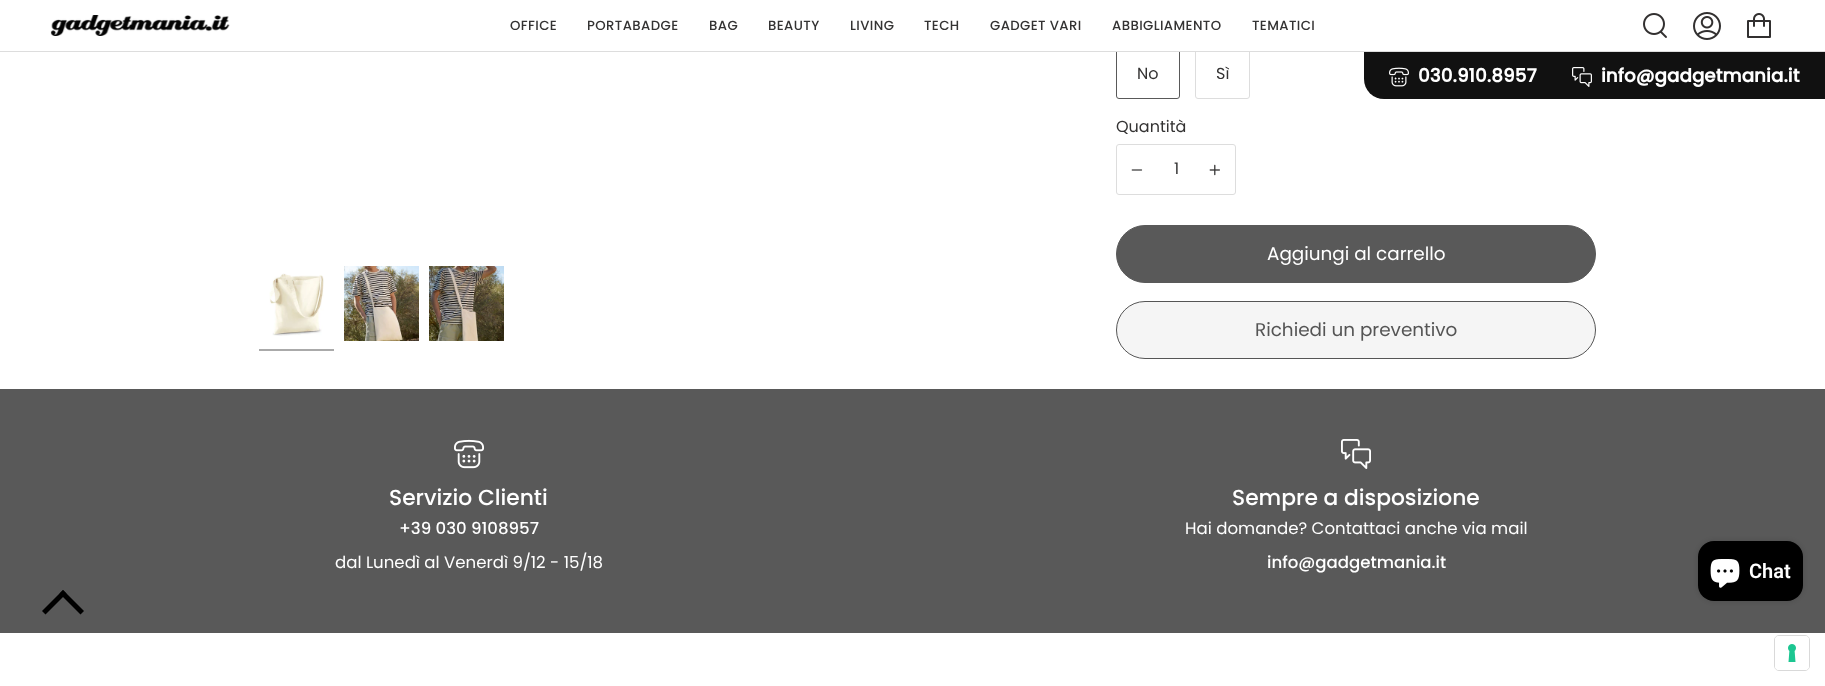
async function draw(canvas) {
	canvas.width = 1825;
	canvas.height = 686;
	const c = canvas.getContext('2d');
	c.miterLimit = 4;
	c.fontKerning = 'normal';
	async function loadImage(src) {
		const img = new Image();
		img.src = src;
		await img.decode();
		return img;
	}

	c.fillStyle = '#fff';
	c.fillRect(0, 0, 1825, 686);
	c.fillStyle = '#111';
	c.beginPath();
	c.roundRect(1364, 42, 461, 57, [0, 0, 0, 20]);
	c.fill();
	c.beginPath();
	c.roundRect(1116.5, 49.5, 63, 49, 2.5);
	c.strokeStyle = '#595959';
	c.stroke();
	c.beginPath();
	c.roundRect(1195.5, 49.5, 54, 49, 2.5);
	c.strokeStyle = '#ddd';
	c.stroke();
	c.fillStyle = '#ddd';
	c.fillRect(0, 51, 1825, 1);
	c.drawImage(await loadImage('img1.png'), 50, 15, 180, 21);
	c.letterSpacing = '0.4px';
	c.font = '500 13.25px Poppins';
	c.fillStyle = '#343333';
	for (const [text, x, y] of [
		['OFFICE', 510, 30],
		['PORTABADGE', 587, 30],
		['BAG', 709, 30],
		['BEAUTY', 768, 30],
		['LIVING', 850, 30],
		['TECH', 924, 30],
		['GADGET VARI', 990, 30],
		['ABBIGLIAMENTO', 1112, 30],
		['TEMATICI', 1252, 30],
	]) {
		c.fillText(text, x, y);
	}
	c.drawImage(await loadImage('img2.png'), 1643, 13, 24, 25);
	c.drawImage(await loadImage('img3.png'), 1693, 12, 28, 28);
	c.drawImage(await loadImage('img4.png'), 1747, 13, 24, 25);
	c.fillStyle = '#fff';
	c.fillRect(1116, 42, 709, 9);
	c.drawImage(await loadImage('img5.png'), 1389, 67, 20, 20);
	c.letterSpacing = '0px';
	c.font = 'bold 18.4px Poppins';
	c.fillText('030.910.8957', 1418, 82);
	c.drawImage(await loadImage('img6.png'), 1572, 67, 20, 20);
	c.fillText('info@gadgetmania.it', 1601, 82);
	c.drawImage(await loadImage('img7.png'), 269, 273, 55, 63);
	c.fillStyle = '#aaa';
	c.fillRect(259, 349, 75, 2);
	c.drawImage(await loadImage('img8.png'), 344, 266, 75, 75);
	c.drawImage(await loadImage('img9.png'), 429, 266, 75, 75);
	c.font = '16px Poppins';
	c.fillStyle = '#343333';
	for (const [text, x, y] of [
		['No', 1137, 79],
		['Sì', 1216, 79],
		['Quantità', 1116, 132],
	]) {
		c.fillText(text, x, y);
	}
	c.beginPath();
	c.roundRect(1116.5, 144.5, 119, 50, 2.5);
	c.stroke();
	c.drawImage(await loadImage('img10.png'), 1131, 169, 12, 2);
	c.fillText('1', 1174, 174);
	c.drawImage(await loadImage('img11.png'), 1209, 164, 11, 12);
	c.fillStyle = '#595959';
	c.beginPath();
	c.roundRect(1116.5, 225.5, 479, 57, 28.5);
	c.fill();
	c.strokeStyle = '#595959';
	c.stroke();
	c.font = '18.4px Poppins';
	c.fillStyle = '#fff';
	c.fillText('Aggiungi al carrello', 1267, 260);
	c.fillStyle = '#f5f5f5';
	c.beginPath();
	c.roundRect(1116.5, 301.5, 479, 57, 28.5);
	c.fill();
	c.strokeStyle = '#555';
	c.stroke();
	c.fillStyle = '#555';
	c.fillText('Richiedi un preventivo', 1255, 336);
	c.fillStyle = '#595959';
	c.fillRect(0, 389, 1825, 244);
	c.fillStyle = '#000';
	c.beginPath();
	c.moveTo(66.5, 593.5);
	c.lineTo(45.5, 614.5);
	c.lineTo(42, 611);
	c.lineTo(63, 590);
	c.closePath();
	c.fill();
	c.beginPath();
	c.moveTo(84, 611);
	c.lineTo(80.5, 614.5);
	c.lineTo(59.5, 593.5);
	c.lineTo(63, 590);
	c.closePath();
	c.fill();
	c.drawImage(await loadImage('img12.png'), 454, 439, 30, 30);
	c.font = '500 21.8px Poppins';
	c.fillStyle = '#fff';
	c.fillText('Servizio Clienti', 389, 505);
	c.font = '500 16.6px Poppins';
	c.fillText('+39 030 9108957', 399, 534);
	c.font = '16.6px Poppins';
	c.fillText('dal Lunedì al Venerdì 9/12 - 15/18', 335, 568);
	c.drawImage(await loadImage('img13.png'), 1341, 439, 30, 30);
	c.font = '500 21.8px Poppins';
	c.fillText('Sempre a disposizione', 1232, 505);
	c.font = '16.6px Poppins';
	c.fillText('Hai domande? Contattaci anche via mail', 1185, 534);
	c.font = '500 16.6px Poppins';
	c.fillText('info@gadgetmania.it', 1267, 568);
	c.fillStyle = '#00000026';
	c.filter = 'blur(2.5px)';
	c.beginPath();
	c.roundRect(1698, 541, 105, 60, 16);
	c.fill();
	c.filter = 'none';
	c.fillStyle = '#000';
	c.beginPath();
	c.roundRect(1698, 541, 105, 60, 16);
	c.fill();
	c.drawImage(await loadImage('img14.png'), 1710, 559, 30, 29);
	c.font = '600 20px Roboto';
	c.fillStyle = '#fff';
	c.fillText('Chat', 1749, 578);
	c.beginPath();
	c.roundRect(1774.5, 635.5, 35, 35, 4.5);
	c.strokeStyle = '#d9d9d9';
	c.stroke();
	c.beginPath();
	c.roundRect(1775, 636, 34, 34, 4);
	c.fill();
	c.drawImage(await loadImage('img15.png'), 1788, 644, 8, 18);
}

draw(document.querySelector('canvas'));
